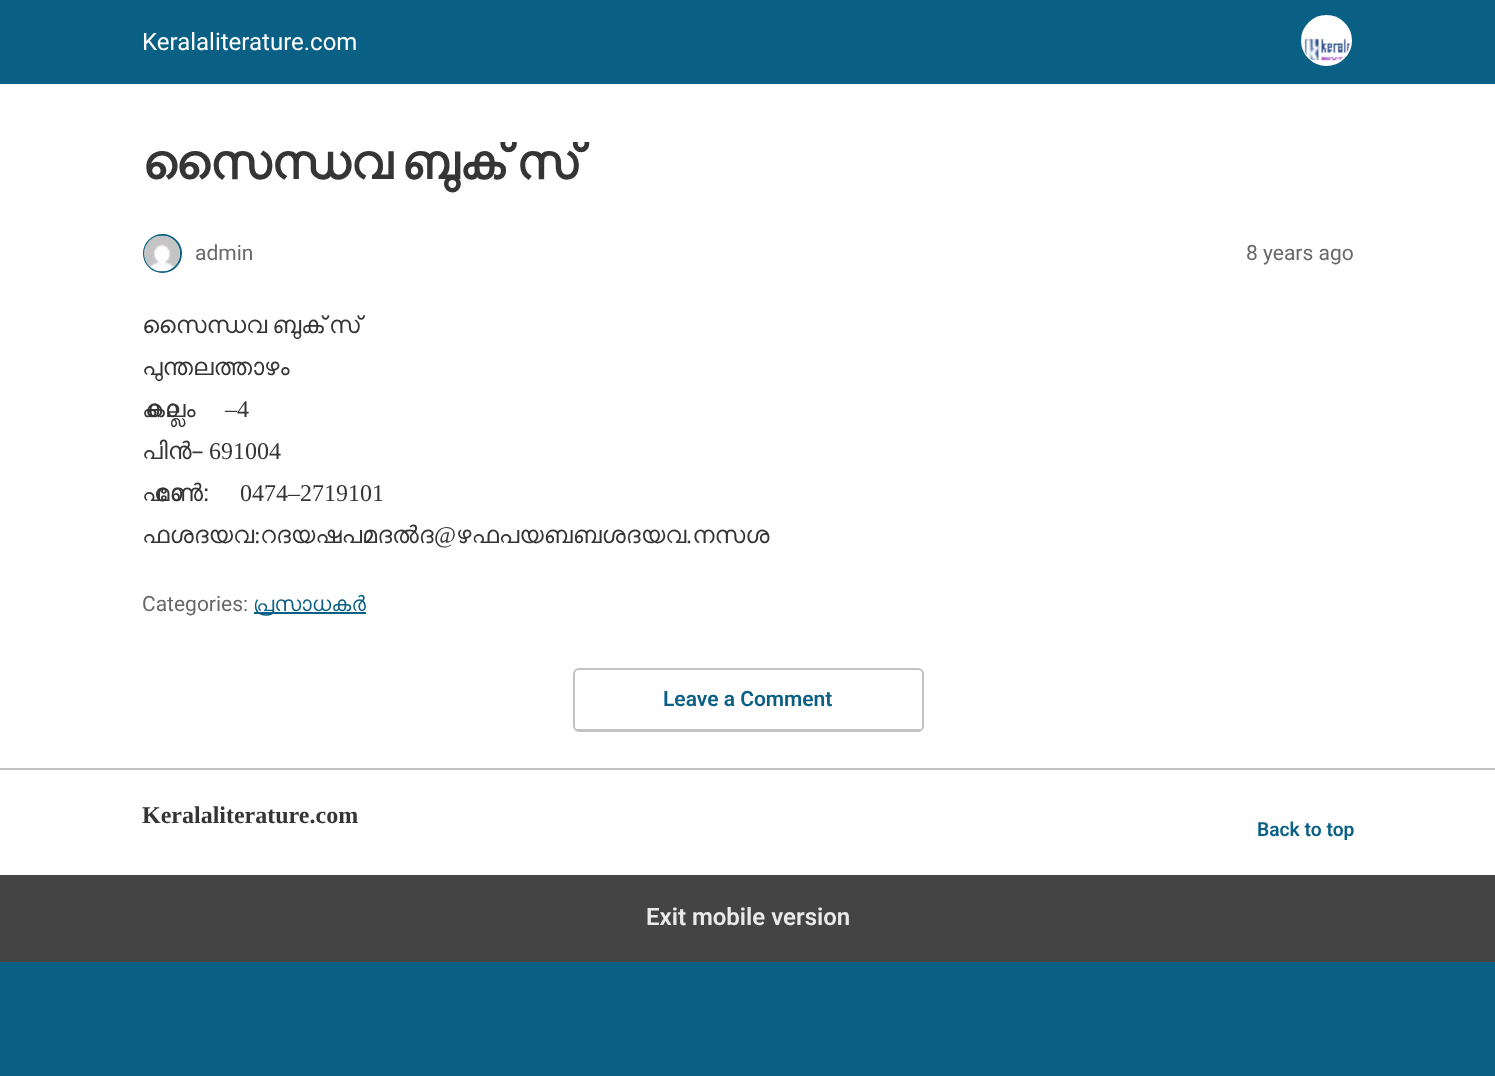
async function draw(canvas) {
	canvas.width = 1495;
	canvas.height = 1076;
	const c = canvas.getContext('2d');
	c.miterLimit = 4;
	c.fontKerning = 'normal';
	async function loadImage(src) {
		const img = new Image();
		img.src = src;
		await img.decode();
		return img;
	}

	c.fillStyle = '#0a5f85';
	c.fillRect(0, 0, 1495, 1076);
	c.fillStyle = '#fff';
	c.fillRect(0, 84, 1495, 791);
	c.font = '24px Roboto';
	c.fillText('Keralaliterature.com', 142, 50);
	c.beginPath();
	c.arc(1326.5, 40.5, 24.5, 0, 2 * Math.PI);
	c.fill();
	c.strokeStyle = '#fff';
	c.lineWidth = 2;
	c.stroke();
	c.drawImage(await loadImage('img1.png'), 1304, 38, 46, 23);
	c.wordSpacing = '-3px';
	c.font = 'bold 48px FreeSans';
	c.fillStyle = '#353535';
	c.fillText('സൈന്ധവ ബുക്', 142, 179);
	c.wordSpacing = '0px';
	c.fillText('സ്', 516, 179);
	c.beginPath();
	c.arc(162.5, 253.5, 18.5, 0, 2 * Math.PI);
	c.strokeStyle = '#0a5f85';
	c.stroke();
	c.drawImage(await loadImage('img2.png'), 144, 235, 36, 37);
	c.font = '21px Roboto';
	c.fillStyle = '#696969';
	c.fillText('admin', 195, 260);
	c.fillText('8 years ago', 1246, 260);
	c.wordSpacing = '-1px';
	c.font = '24px FreeSans';
	c.fillStyle = '#353535';
	c.fillText('സൈന്ധവ ബുക്', 142, 333);
	c.wordSpacing = '0px';
	for (const [text, x, y] of [
		['സ്', 329, 333],
		['പുന്തലത്താഴം', 142, 375],
		['കൊല്ലം', 142, 417],
	]) {
		c.fillText(text, x, y);
	}
	c.font = '24px Liberation Serif';
	c.fillText('–4', 225, 417);
	c.font = '24px FreeSans';
	c.fillText('പിന്‍–', 142, 459);
	c.font = '24px Liberation Serif';
	c.fillText('691004', 209, 459);
	c.font = '24px FreeSans';
	c.fillText('ഫോണ്‍:', 142, 501);
	c.font = '24px Liberation Serif';
	c.fillText('0474–2719101', 240, 501);
	c.font = '24px FreeSans';
	c.fillText('ഫശദയവ', 142, 543);
	c.font = '24px Liberation Serif';
	c.fillText(':', 254, 543);
	c.font = '24px FreeSans';
	c.fillText('റദയഷപമദല്‍ദ', 260, 543);
	c.font = '24px Liberation Serif';
	c.fillText('@', 434, 543);
	c.font = '24px FreeSans';
	c.fillText('ഴഫപയബബശദയവ നസശ', 456, 543);
	c.font = '24px Liberation Serif';
	c.fillText('.', 686, 543);
	c.font = '21px Roboto';
	c.fillStyle = '#696969';
	c.fillText('Categories:', 142, 611);
	c.fillStyle = '#0a5f85';
	c.fillRect(254, 612, 112, 2);
	c.font = '21px FreeSans';
	c.fillText('പ്രസാധകര്‍', 253, 611);
	c.beginPath();
	c.roundRect(574, 669, 349, 62, 5);
	c.strokeStyle = '#c2c2c2';
	c.stroke();
	c.fillStyle = '#c2c2c2';
	c.fillRect(576, 729, 345, 1);
	c.font = '600 21px Roboto';
	c.fillStyle = '#0a5f85';
	c.fillText('Leave a Comment', 663, 706);
	c.fillStyle = '#c2c2c2';
	c.fillRect(0, 768, 1495, 2);
	c.font = 'bold 24px Liberation Serif';
	c.fillStyle = '#353535';
	c.fillText('Keralaliterature.com', 142, 823);
	c.font = '600 19.25px Roboto';
	c.fillStyle = '#0a5f85';
	c.fillText('Back to top', 1257, 836);
	c.fillStyle = '#444';
	c.fillRect(0, 875, 1495, 87);
	c.font = '600 24px Roboto';
	c.fillStyle = '#eaeaea';
	c.fillText('Exit mobile version', 646, 925);
}

draw(document.querySelector('canvas'));
